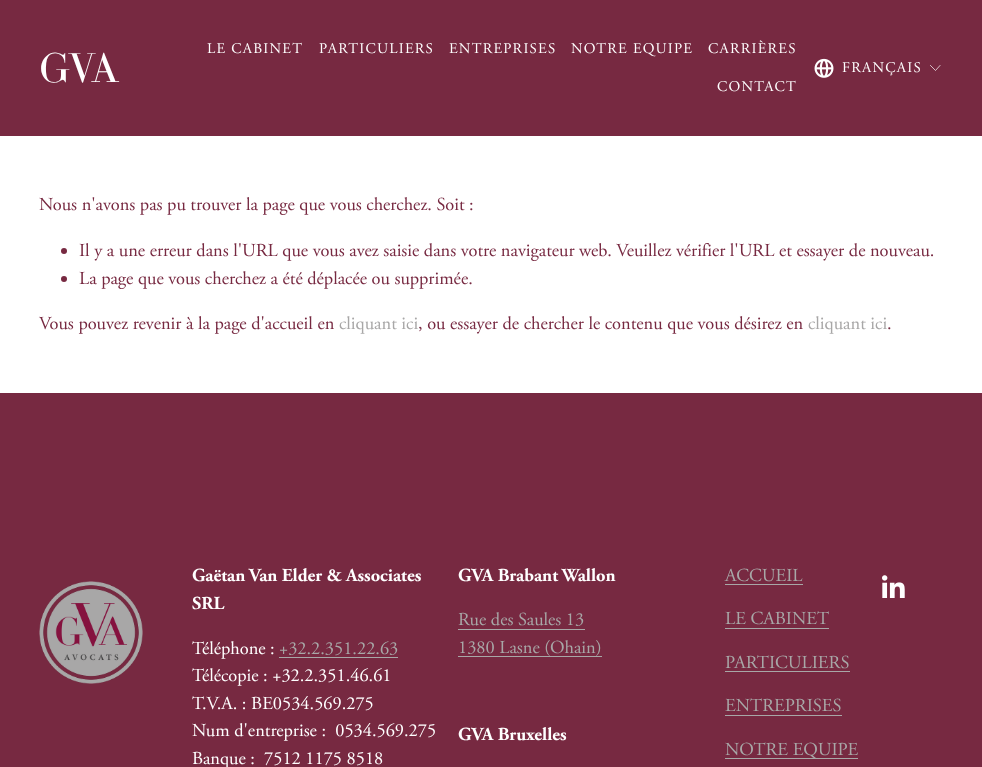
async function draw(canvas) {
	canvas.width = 982;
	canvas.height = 767;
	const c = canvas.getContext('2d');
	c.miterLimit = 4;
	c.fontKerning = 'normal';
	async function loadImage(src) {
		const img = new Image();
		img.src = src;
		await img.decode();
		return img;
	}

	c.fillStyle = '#fff';
	c.fillRect(0, 0, 982, 767);
	c.fillStyle = '#772941';
	c.fillRect(0, 0, 982, 136);
	c.font = '41px "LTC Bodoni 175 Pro"';
	c.fillStyle = '#fff';
	c.fillText('GVA', 39, 82);
	c.letterSpacing = '1.25px';
	c.font = '14.75px Adobe Garamond';
	for (const [text, x, y] of [
		['LE CABINET', 207, 53],
		['PARTICULIERS', 319, 53],
		['ENTREPRISES', 449, 53],
		['NOTRE EQUIPE', 571, 53],
		['CARRIÈRES', 708, 53],
		['CONTACT', 717, 91],
	]) {
		c.fillText(text, x, y);
	}
	c.drawImage(await loadImage('img1.png'), 814, 58, 20, 20);
	c.fillText('FRANÇAIS', 842, 72);
	c.beginPath();
	c.moveTo(940, 65.5);
	c.lineTo(935.5, 70.5);
	c.lineTo(930.5, 65.5);
	c.strokeStyle = '#fff';
	c.lineWidth = 0.7;
	c.lineCap = 'square';
	c.stroke();
	c.letterSpacing = '0px';
	c.font = '18.35px Adobe Garamond';
	c.fillStyle = '#772941';
	c.fillText('Nous n\'avons pas pu trouver la page que vous cherchez. Soit :', 39, 210);
	c.beginPath();
	c.arc(64, 251, 3, 0, 2 * Math.PI);
	c.fill();
	c.fillText('Il y a une erreur dans l\'URL que vous avez saisie dans votre navigateur web. Veuillez vérifier l\'URL et essayer de nouveau.', 79, 256);
	c.beginPath();
	c.arc(64, 279, 3, 0, 2 * Math.PI);
	c.fill();
	c.fillText('La page que vous cherchez a été déplacée ou supprimée.', 79, 284);
	c.fillText('Vous pouvez revenir à la page d\'accueil en', 39, 329);
	c.fillStyle = '#a8a7a7';
	c.fillText('cliquant ici', 339, 329);
	c.fillStyle = '#772941';
	c.fillText(', ou essayer de chercher le contenu que vous désirez en', 418, 329);
	c.fillStyle = '#a8a7a7';
	c.fillText('cliquant ici', 808, 329);
	c.fillStyle = '#772941';
	c.fillText('.', 887, 329);
	c.fillRect(0, 393, 982, 374);
	c.drawImage(await loadImage('img2.png'), 39, 581, 104, 103);
	c.font = 'bold 18.35px Adobe Garamond';
	c.fillStyle = '#fff';
	c.fillText('Gaëtan Van Elder & Associates', 192, 581);
	c.fillText('SRL', 192, 609);
	c.font = '18.35px Adobe Garamond';
	c.fillText('Téléphone :', 192, 654);
	c.fillStyle = '#a8a7a7';
	c.fillText('+32.2.351.22.63', 279, 654);
	c.fillRect(279, 657, 119, 1);
	c.fillStyle = '#fff';
	for (const [text, x, y] of [
		['Télécopie : +32.2.351.46.61', 192, 681],
		['T.V.A. : BE0534.569.275', 192, 709],
		['Num d\'entreprise :  0534.569.275', 192, 736],
		['Banque :  7512 1175 8518', 192, 764],
	]) {
		c.fillText(text, x, y);
	}
	c.font = 'bold 18.35px Adobe Garamond';
	c.fillText('GVA Brabant Wallon', 458, 581);
	c.font = '18.35px Adobe Garamond';
	c.fillStyle = '#a8a7a7';
	c.fillText('Rue des Saules 13', 458, 625);
	c.fillRect(458, 629, 127, 1);
	c.fillText('1380 Lasne (Ohain)', 458, 653);
	c.fillRect(458, 656, 144, 1);
	c.font = 'bold 18.35px Adobe Garamond';
	c.fillStyle = '#fff';
	c.fillText('GVA Bruxelles', 458, 740);
	c.font = '18.35px Adobe Garamond';
	c.fillStyle = '#a8a7a7';
	c.fillText('ACCUEIL', 725, 581);
	c.fillRect(725, 584, 78, 1);
	c.fillText('LE CABINET', 725, 624);
	c.fillRect(725, 628, 104, 1);
	c.fillText('PARTICULIERS', 725, 668);
	c.fillRect(725, 671, 125, 1);
	c.fillText('ENTREPRISES', 725, 711);
	c.fillRect(725, 715, 117, 1);
	c.fillRect(725, 758, 133, 1);
	c.fillText('NOTRE EQUIPE', 725, 755);
	c.drawImage(await loadImage('img3.png'), 882, 575, 23, 23);
}

draw(document.querySelector('canvas'));
